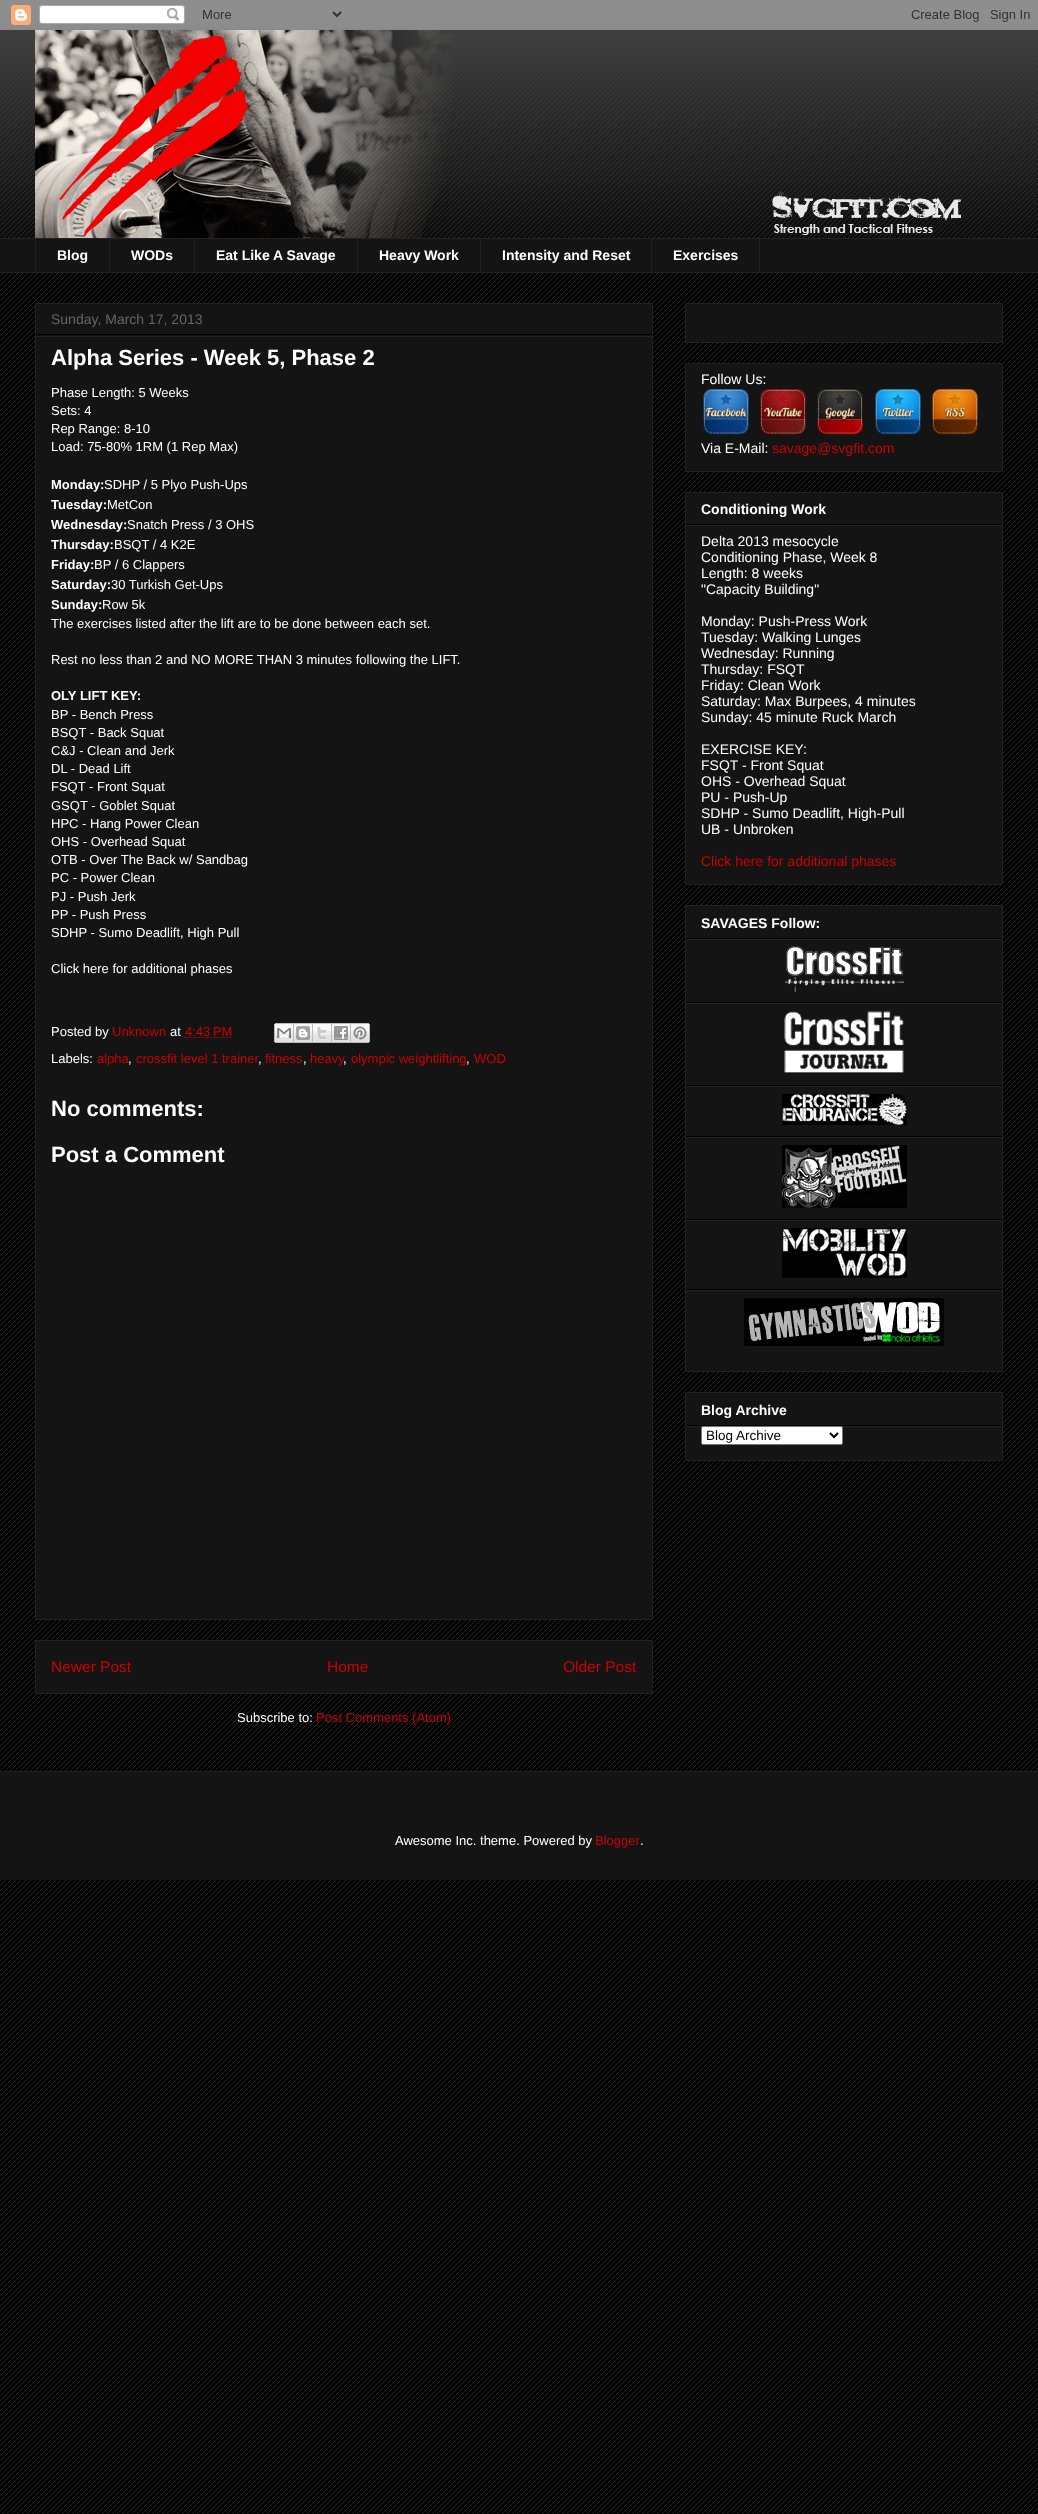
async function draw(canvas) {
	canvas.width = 1038;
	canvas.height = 2514;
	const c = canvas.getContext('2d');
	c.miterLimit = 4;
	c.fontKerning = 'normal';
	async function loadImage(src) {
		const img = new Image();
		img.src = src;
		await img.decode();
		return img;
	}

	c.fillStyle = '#000';
	c.fillRect(0, 0, 1038, 2514);
	c.drawImage(await loadImage('img1.png'), 0, 13, 1038, 2501);
	c.drawImage(await loadImage('img2.png'), 0, 0, 1038, 238);
	c.drawImage(await loadImage('img3.png'), 0, 0, 1038, 30);
	c.drawImage(await loadImage('img4.png'), 35, 30, 926, 208);
	for (const [x, y, w, h, color] of [
		[0, 239, 1038, 33, '#141414'],
		[0, 238, 1038, 1, '#222'],
		[35, 238, 1, 35, '#222'],
	]) {
		c.fillStyle = color;
		c.fillRect(x, y, w, h);
	}
	c.font = 'bold 14px Liberation Sans';
	c.fillStyle = '#fff';
	c.fillText('Blog', 57, 260);
	c.fillStyle = '#222';
	c.fillRect(109, 238, 1, 35);
	c.fillStyle = '#fff';
	c.fillText('WODs', 131, 260);
	c.fillStyle = '#222';
	c.fillRect(194, 238, 1, 35);
	c.fillStyle = '#fff';
	c.fillText('Eat Like A Savage', 216, 260);
	c.fillStyle = '#222';
	c.fillRect(357, 238, 1, 35);
	c.fillStyle = '#fff';
	c.fillText('Heavy Work', 379, 260);
	c.fillStyle = '#222';
	c.fillRect(480, 238, 1, 35);
	c.fillStyle = '#fff';
	c.fillText('Intensity and Reset', 502, 260);
	c.strokeStyle = '#222';
	c.strokeRect(651.5, 238.5, 108, 34);
	c.fillText('Exercises', 673, 260);
	c.fillStyle = '#222';
	c.fillRect(0, 272, 1038, 1);
	c.fillStyle = '#141414';
	c.beginPath();
	c.rect(35.5, 303.5, 617, 1316);
	c.fill();
	c.stroke();
	c.fillStyle = '#000';
	c.fillRect(36, 334, 616, 1);
	c.font = '14px Liberation Sans';
	c.fillStyle = '#666';
	c.fillText('Sunday, March 17, 2013', 51, 324);
	c.fillStyle = '#222';
	c.fillRect(36, 336, 616, 1);
	c.font = 'bold 22px Liberation Sans';
	c.fillStyle = '#fff';
	c.fillText('Alpha Series - Week 5, Phase 2', 51, 365);
	c.font = '13px Liberation Sans';
	for (const [text, x, y] of [
		['Phase Length: 5 Weeks', 51, 397],
		['Sets: 4', 51, 415],
		['Rep Range: 8-10', 51, 433],
		['Load: 75-80% 1RM (1 Rep Max)', 51, 451],
	]) {
		c.fillText(text, x, y);
	}
	c.font = 'bold 13px Liberation Sans';
	c.fillText('Monday:', 51, 489);
	c.font = '13px Liberation Sans';
	c.fillText('SDHP / 5 Plyo Push-Ups', 104, 489);
	c.font = 'bold 13px Liberation Sans';
	c.fillText('Tuesday:', 51, 509);
	c.font = '13px Liberation Sans';
	c.fillText('MetCon', 107, 509);
	c.font = 'bold 13px Liberation Sans';
	c.fillText('Wednesday:', 51, 529);
	c.font = '13px Liberation Sans';
	c.fillText('Snatch Press / 3 OHS', 127, 529);
	c.font = 'bold 13px Liberation Sans';
	c.fillText('Thursday:', 51, 549);
	c.font = '13px Liberation Sans';
	c.fillText('BSQT / 4 K2E', 114, 549);
	c.font = 'bold 13px Liberation Sans';
	c.fillText('Friday:', 51, 569);
	c.font = '13px Liberation Sans';
	c.fillText('BP / 6 Clappers', 94, 569);
	c.font = 'bold 13px Liberation Sans';
	c.fillText('Saturday:', 51, 589);
	c.font = '13px Liberation Sans';
	c.fillText('30 Turkish Get-Ups', 111, 589);
	c.font = 'bold 13px Liberation Sans';
	c.fillText('Sunday:', 51, 609);
	c.font = '13px Liberation Sans';
	for (const [text, x, y] of [
		['Row 5k', 102, 609],
		['The exercises listed after the lift are to be done between each set.', 51, 628],
		['Rest no less than 2 and NO MORE THAN 3 minutes following the LIFT.', 51, 664],
	]) {
		c.fillText(text, x, y);
	}
	c.font = 'bold 13px Liberation Sans';
	c.fillText('OLY LIFT KEY:', 51, 700);
	c.font = '13px Liberation Sans';
	for (const [text, x, y] of [
		['BP - Bench Press', 51, 719],
		['BSQT - Back Squat', 51, 737],
		['C&J - Clean and Jerk', 51, 755],
		['DL - Dead Lift', 51, 773],
		['FSQT - Front Squat', 51, 791],
		['GSQT - Goblet Squat', 51, 810],
		['HPC - Hang Power Clean', 51, 828],
		['OHS - Overhead Squat', 51, 846],
		['OTB - Over The Back w/ Sandbag', 51, 864],
		['PC - Power Clean', 51, 882],
		['PJ - Push Jerk', 51, 901],
		['PP - Push Press', 51, 919],
		['SDHP - Sumo Deadlift, High Pull', 51, 937],
		['Click here for additional phases', 51, 973],
		['Posted by', 51, 1036],
	]) {
		c.fillText(text, x, y);
	}
	c.fillStyle = '#c00';
	c.fillText('Unknown', 112, 1036);
	c.fillStyle = '#fff';
	c.fillText('at', 170, 1036);
	c.fillStyle = '#c00';
	c.fillText('4:43 PM', 185, 1036);
	c.beginPath();
	c.moveTo(184.5, 1037.5);
	c.lineTo(232, 1037.5);
	c.strokeStyle = '#c00';
	c.setLineDash([1, 1]);
	c.stroke();
	c.drawImage(await loadImage('img5.png'), 274, 1023, 20, 20);
	c.drawImage(await loadImage('img6.png'), 294, 1023, 19, 20);
	c.drawImage(await loadImage('img7.png'), 313, 1023, 19, 20);
	c.drawImage(await loadImage('img8.png'), 332, 1023, 19, 20);
	c.drawImage(await loadImage('img9.png'), 351, 1023, 19, 20);
	c.fillStyle = '#fff';
	c.fillText('Labels:', 51, 1063);
	c.fillStyle = '#c00';
	c.fillText('alpha', 97, 1063);
	c.fillStyle = '#fff';
	c.fillText(',', 128, 1063);
	c.fillStyle = '#c00';
	c.fillText('crossfit level 1 trainer', 136, 1063);
	c.fillStyle = '#fff';
	c.fillText(',', 258, 1063);
	c.fillStyle = '#c00';
	c.fillText('fitness', 265, 1063);
	c.fillStyle = '#fff';
	c.fillText(',', 303, 1063);
	c.fillStyle = '#c00';
	for (const [text, x, y] of [
		['heavy', 310, 1063],
		['olympic weightlifting', 351, 1063],
		['WOD', 474, 1063],
	]) {
		c.fillText(text, x, y);
	}
	c.fillStyle = '#fff';
	c.fillText(',', 343, 1063);
	c.fillText(',', 466, 1063);
	c.font = 'bold 22px Liberation Sans';
	c.fillText('No comments:', 51, 1116);
	c.fillText('Post a Comment', 51, 1162);
	c.fillStyle = '#141414';
	c.beginPath();
	c.rect(35.5, 1640.5, 617, 53);
	c.fill();
	c.strokeStyle = '#222';
	c.setLineDash([]);
	c.stroke();
	c.font = '15.5px Liberation Sans';
	c.fillStyle = '#c00';
	for (const [text, x, y] of [
		['Newer Post', 51, 1672],
		['Home', 327, 1672],
		['Older Post', 563, 1672],
	]) {
		c.fillText(text, x, y);
	}
	c.font = '13px Liberation Sans';
	c.fillStyle = '#fff';
	c.fillText('Subscribe to:', 237, 1722);
	c.fillStyle = '#c00';
	c.fillText('Post Comments (Atom)', 316, 1722);
	c.fillStyle = '#141414';
	c.beginPath();
	c.rect(685.5, 303.5, 317, 39);
	c.fill();
	c.stroke();
	c.beginPath();
	c.rect(685.5, 363.5, 317, 108);
	c.fill();
	c.stroke();
	c.font = '14px Liberation Sans';
	c.fillStyle = '#fff';
	c.fillText('Follow Us:', 701, 384);
	c.drawImage(await loadImage('img10.png'), 703, 389, 46, 46);
	c.drawImage(await loadImage('img11.png'), 760, 389, 46, 46);
	c.drawImage(await loadImage('img12.png'), 817, 389, 46, 46);
	c.drawImage(await loadImage('img13.png'), 875, 389, 46, 46);
	c.drawImage(await loadImage('img14.png'), 932, 389, 46, 46);
	c.fillText('Via E-Mail:', 701, 453);
	c.fillStyle = '#c00';
	c.fillText('savage@svgfit.com', 772, 453);
	c.fillStyle = '#141414';
	c.beginPath();
	c.rect(685.5, 492.5, 317, 392);
	c.fill();
	c.stroke();
	c.fillStyle = '#000';
	c.fillRect(686, 524, 316, 1);
	c.font = 'bold 14px Liberation Sans';
	c.fillStyle = '#fff';
	c.fillText('Conditioning Work', 701, 514);
	c.fillStyle = '#222';
	c.fillRect(686, 525, 316, 1);
	c.font = '14px Liberation Sans';
	c.fillStyle = '#fff';
	for (const [text, x, y] of [
		['Delta 2013 mesocycle', 701, 546],
		['Conditioning Phase, Week 8', 701, 562],
		['Length: 8 weeks', 701, 578],
		['"Capacity Building"', 701, 594],
		['Monday: Push-Press Work', 701, 626],
		['Tuesday: Walking Lunges', 701, 642],
		['Wednesday: Running', 701, 658],
		['Thursday: FSQT', 701, 674],
		['Friday: Clean Work', 701, 690],
		['Saturday: Max Burpees, 4 minutes', 701, 706],
		['Sunday: 45 minute Ruck March', 701, 722],
		['EXERCISE KEY:', 701, 754],
		['FSQT - Front Squat', 701, 770],
		['OHS - Overhead Squat', 701, 786],
		['PU - Push-Up', 701, 802],
		['SDHP - Sumo Deadlift, High-Pull', 701, 818],
		['UB - Unbroken', 701, 834],
	]) {
		c.fillText(text, x, y);
	}
	c.fillStyle = '#c00';
	c.fillText('Click here for additional phases', 701, 866);
	c.fillStyle = '#141414';
	c.beginPath();
	c.rect(685.5, 905.5, 317, 466);
	c.fill();
	c.stroke();
	c.fillStyle = '#000';
	c.fillRect(686, 938, 316, 1);
	c.font = 'bold 14px Liberation Sans';
	c.fillStyle = '#fff';
	c.fillText('SAVAGES Follow:', 701, 928);
	c.fillStyle = '#222';
	c.fillRect(686, 939, 316, 1);
	c.fillStyle = '#000';
	c.fillRect(686, 1002, 316, 1);
	c.drawImage(await loadImage('img15.png'), 785, 946, 119, 46);
	c.fillStyle = '#222';
	c.fillRect(686, 1003, 316, 1);
	c.fillStyle = '#000';
	c.fillRect(686, 1085, 316, 1);
	c.drawImage(await loadImage('img16.png'), 784, 1011, 120, 62);
	c.fillStyle = '#222';
	c.fillRect(686, 1086, 316, 1);
	c.fillStyle = '#000';
	c.fillRect(686, 1136, 316, 1);
	c.drawImage(await loadImage('img17.png'), 782, 1094, 125, 31);
	c.fillStyle = '#222';
	c.fillRect(686, 1137, 316, 1);
	c.fillStyle = '#000';
	c.fillRect(686, 1219, 316, 1);
	c.drawImage(await loadImage('img18.png'), 782, 1145, 125, 63);
	c.fillStyle = '#222';
	c.fillRect(686, 1220, 316, 1);
	c.fillStyle = '#000';
	c.fillRect(686, 1289, 316, 1);
	c.drawImage(await loadImage('img19.png'), 782, 1228, 125, 50);
	c.fillStyle = '#222';
	c.fillRect(686, 1290, 316, 1);
	c.drawImage(await loadImage('img20.png'), 744, 1298, 200, 48);
	c.fillStyle = '#141414';
	c.beginPath();
	c.rect(685.5, 1392.5, 317, 68);
	c.fill();
	c.stroke();
	c.fillStyle = '#000';
	c.fillRect(686, 1425, 316, 1);
	c.fillStyle = '#fff';
	c.fillText('Blog Archive', 701, 1415);
	c.fillStyle = '#222';
	c.fillRect(686, 1426, 316, 1);
	c.fillStyle = '#fff';
	c.beginPath();
	c.roundRect(701.5, 1426.5, 141, 18, 1.5);
	c.fill();
	c.strokeStyle = '#767676';
	c.stroke();
	c.beginPath();
	c.moveTo(830, 1433);
	c.lineTo(834, 1437);
	c.lineTo(838, 1433);
	c.strokeStyle = '#000';
	c.lineWidth = 2;
	c.stroke();
	c.font = '13.5px Liberation Sans';
	c.fillStyle = '#000';
	c.fillText('Blog Archive', 706, 1440);
	c.fillStyle = '#141414';
	c.fillRect(0, 1772, 1038, 108);
	c.fillStyle = '#222';
	c.fillRect(0, 1771, 1038, 1);
	c.font = '13px Liberation Sans';
	c.fillStyle = '#fff';
	c.fillText('Awesome Inc. theme. Powered by', 395, 1845);
	c.fillStyle = '#c00';
	c.fillText('Blogger', 595, 1845);
	c.fillStyle = '#fff';
	c.fillText('.', 640, 1845);
}

draw(document.querySelector('canvas'));
